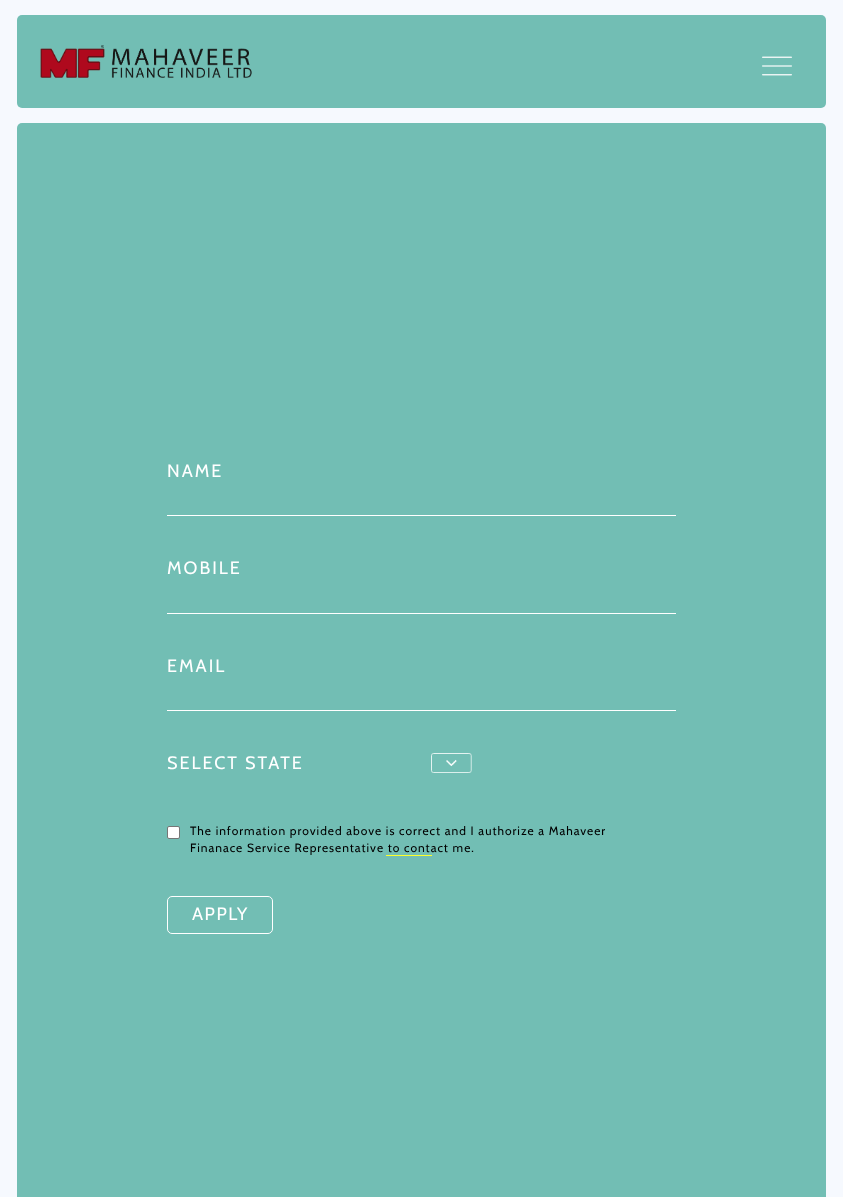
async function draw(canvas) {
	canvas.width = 843;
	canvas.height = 1197;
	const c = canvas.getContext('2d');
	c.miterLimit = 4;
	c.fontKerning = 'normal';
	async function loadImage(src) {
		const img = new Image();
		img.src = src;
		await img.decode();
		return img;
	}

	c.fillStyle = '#f6f9fe';
	c.fillRect(0, 0, 843, 1197);
	c.fillStyle = '#72beb4';
	c.beginPath();
	c.roundRect(17, 15, 809, 93, 5);
	c.fill();
	c.drawImage(await loadImage('img1.png'), 40, 45, 212, 33);
	c.drawImage(await loadImage('img2.png'), 762, 56, 30, 20);
	c.beginPath();
	c.roundRect(17, 123, 809, 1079, 5);
	c.fill();
	c.letterSpacing = '2px';
	c.font = '18px Cabin';
	c.fillStyle = '#fff';
	c.fillText('NAME', 167, 477);
	c.fillRect(167, 515, 509, 1);
	c.fillText('MOBILE', 167, 574);
	c.fillRect(167, 613, 509, 1);
	c.fillText('EMAIL', 167, 672);
	c.fillRect(167, 710, 509, 1);
	c.fillText('SELECT STATE', 167, 769);
	c.drawImage(await loadImage('img3.png'), 431, 753, 41, 20);
	c.beginPath();
	c.roundRect(167.5, 826.5, 12, 12, 1.5);
	c.fill();
	c.strokeStyle = '#767676';
	c.stroke();
	c.letterSpacing = '1px';
	c.font = '12px Cabin';
	c.fillStyle = '#000';
	c.fillText('The information provided above is correct and I authorize a Mahaveer', 190, 835);
	c.fillText('Finanace Service Representative to contact me.', 190, 852);
	c.fillStyle = '#ffff2b';
	c.fillRect(386, 855, 46, 1);
	c.beginPath();
	c.roundRect(167.5, 896.5, 105, 37, 4.5);
	c.strokeStyle = '#fff';
	c.stroke();
	c.letterSpacing = '1.5px';
	c.font = '18px Cabin';
	c.fillStyle = '#fff';
	c.fillText('APPLY', 192, 920);
}

draw(document.querySelector('canvas'));
